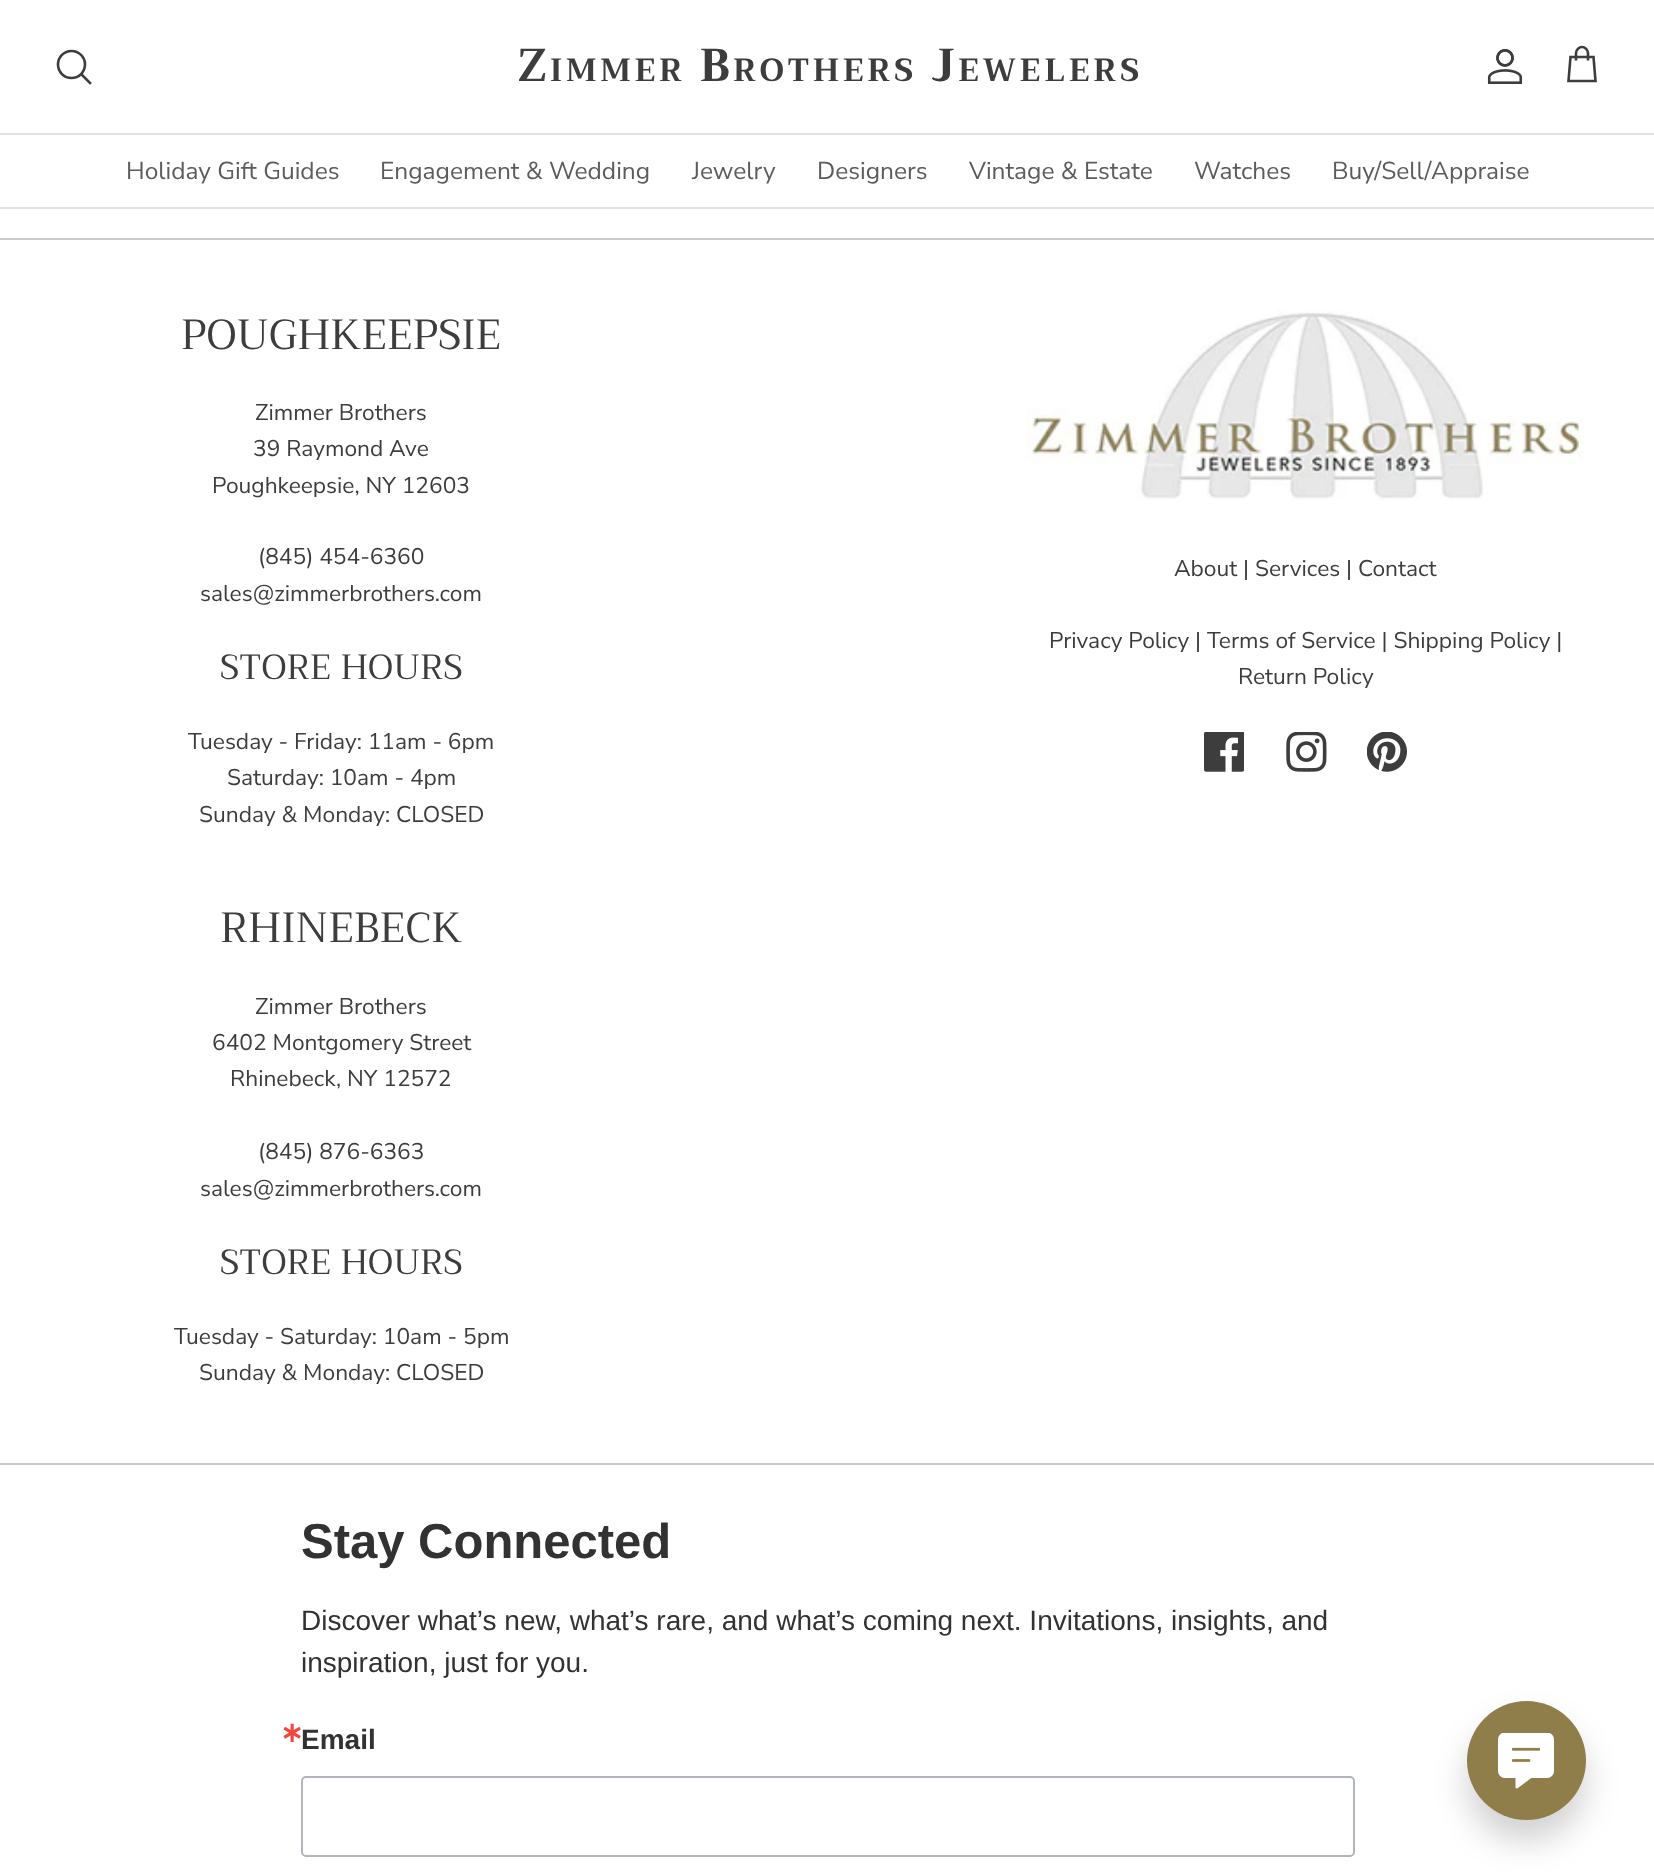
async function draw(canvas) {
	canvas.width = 1654;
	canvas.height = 1876;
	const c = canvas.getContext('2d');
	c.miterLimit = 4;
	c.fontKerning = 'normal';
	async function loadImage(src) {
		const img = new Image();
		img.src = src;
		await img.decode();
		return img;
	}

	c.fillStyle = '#fff';
	c.fillRect(0, 0, 1654, 1876);
	c.fillStyle = '#dfe3e8';
	c.fillRect(0, 133, 1654, 2);
	c.beginPath();
	c.arc(71.5, 64.5, 13.5, 0, 2 * Math.PI);
	c.strokeStyle = '#3d3d3d';
	c.lineWidth = 2.6;
	c.stroke();
	c.beginPath();
	c.moveTo(82, 75);
	c.lineTo(90, 83);
	c.lineCap = 'square';
	c.stroke();
	c.letterSpacing = '3.5px';
	c.font = 'bold 46px Trirong';
	c.fillStyle = '#3d3d3d';
	c.fillText('Z', 518, 81);
	c.font = 'bold 32px Trirong';
	c.fillText('IMMER', 550, 81);
	c.font = 'bold 46px Trirong';
	c.fillText('B', 700, 81);
	c.font = 'bold 32px Trirong';
	c.fillText('ROTHERS', 733, 81);
	c.font = 'bold 46px Trirong';
	c.fillText('J', 931, 81);
	c.font = 'bold 32px Trirong';
	c.fillText('EWELERS', 958, 81);
	c.drawImage(await loadImage('img1.png'), 1487, 49, 36, 35);
	c.beginPath();
	c.moveTo(1588, 60.5);
	c.lineTo(1588, 53);
	c.bezierCurveTo(1588, 50, 1585, 47, 1582, 47);
	c.bezierCurveTo(1579, 47, 1576, 50, 1576, 53);
	c.lineTo(1576, 60.5);
	c.moveTo(1570.5, 57);
	c.lineTo(1593.5, 57);
	c.lineTo(1595.5, 81);
	c.lineTo(1568.5, 81);
	c.closePath();
	c.lineCap = 'butt';
	c.stroke();
	c.fillStyle = '#dfe3e8';
	c.fillRect(0, 207, 1654, 2);
	c.letterSpacing = '0px';
	c.font = '24.5px Nunito Sans';
	c.fillStyle = '#5c5c5c';
	for (const [text, x, y] of [
		['Holiday Gift Guides', 126, 179],
		['Engagement & Wedding', 380, 179],
		['Jewelry', 692, 179],
		['Designers', 817, 179],
		['Vintage & Estate', 969, 179],
		['Watches', 1194, 179],
		['Buy/Sell/Appraise', 1332, 179],
	]) {
		c.fillText(text, x, y);
	}
	c.fillStyle = '#c9c9c9';
	c.fillRect(0, 238, 1654, 2);
	c.font = '42px Trirong';
	c.fillStyle = '#3d3d3d';
	c.fillText('POUGHKEEPSIE', 181, 349);
	c.font = '22.75px Nunito Sans';
	for (const [text, x, y] of [
		['Zimmer Brothers', 255, 420],
		['39 Raymond Ave', 253, 456],
		['Poughkeepsie, NY 12603', 212, 493],
		['(845) 454-6360', 258, 564],
		['sales@zimmerbrothers.com', 200, 601],
	]) {
		c.fillText(text, x, y);
	}
	c.font = '35px Trirong';
	c.fillText('STORE HOURS', 220, 679);
	c.font = '22.75px Nunito Sans';
	for (const [text, x, y] of [
		['Tuesday - Friday: 11am - 6pm', 188, 749],
		['Saturday: 10am - 4pm', 227, 785],
		['Sunday & Monday: CLOSED', 199, 822],
	]) {
		c.fillText(text, x, y);
	}
	c.drawImage(await loadImage('img2.png'), 1025, 310, 560, 190);
	for (const [text, x, y] of [
		['About | Services | Contact', 1174, 576],
		['Privacy Policy | Terms of Service | Shipping Policy |', 1049, 648],
		['Return Policy', 1238, 684],
	]) {
		c.fillText(text, x, y);
	}
	c.drawImage(await loadImage('img3.png'), 1204, 732, 40, 40);
	c.drawImage(await loadImage('img4.png'), 1286, 732, 41, 40);
	c.drawImage(await loadImage('img5.png'), 1367, 732, 40, 40);
	c.font = '42px Trirong';
	c.fillText('RHINEBECK', 220, 942);
	c.font = '22.75px Nunito Sans';
	for (const [text, x, y] of [
		['Zimmer Brothers', 255, 1014],
		['6402 Montgomery Street', 212, 1050],
		['Rhinebeck, NY 12572', 230, 1086],
		['(845) 876-6363', 258, 1159],
		['sales@zimmerbrothers.com', 200, 1196],
	]) {
		c.fillText(text, x, y);
	}
	c.font = '35px Trirong';
	c.fillText('STORE HOURS', 220, 1274);
	c.font = '22.75px Nunito Sans';
	c.fillText('Tuesday - Saturday: 10am - 5pm', 174, 1344);
	c.fillText('Sunday & Monday: CLOSED', 199, 1380);
	c.fillStyle = '#c9c9c9';
	c.fillRect(0, 1463, 1654, 2);
	c.font = 'bold 49px Liberation Sans';
	c.fillStyle = '#323232';
	c.fillText('Stay Connected', 301, 1558);
	c.font = '28px Liberation Sans';
	c.fillText('Discover what’s new, what’s rare, and what’s coming next. Invitations, insights, and', 301, 1630);
	c.fillText('inspiration, just for you.', 301, 1672);
	c.font = 'bold 28px DejaVu Sans';
	c.fillStyle = '#f5463b';
	c.fillText('∗', 280, 1742);
	c.font = 'bold 28px Liberation Sans';
	c.fillStyle = '#323232';
	c.fillText('Email', 301, 1749);
	c.beginPath();
	c.roundRect(302, 1777, 1052, 79, 4);
	c.strokeStyle = '#b0b6bb';
	c.lineWidth = 2;
	c.stroke();
	c.fillStyle = '#0000002e';
	c.filter = 'blur(16.5px)';
	c.beginPath();
	c.roundRect(1467, 1722, 119, 119, 59.5);
	c.fill();
	c.filter = 'none';
	c.fillStyle = '#8f7e49';
	c.beginPath();
	c.arc(1526.5, 1760.5, 59.5, 0, 2 * Math.PI);
	c.fill();
	c.drawImage(await loadImage('img6.png'), 1498, 1733, 56, 56);
}

draw(document.querySelector('canvas'));
